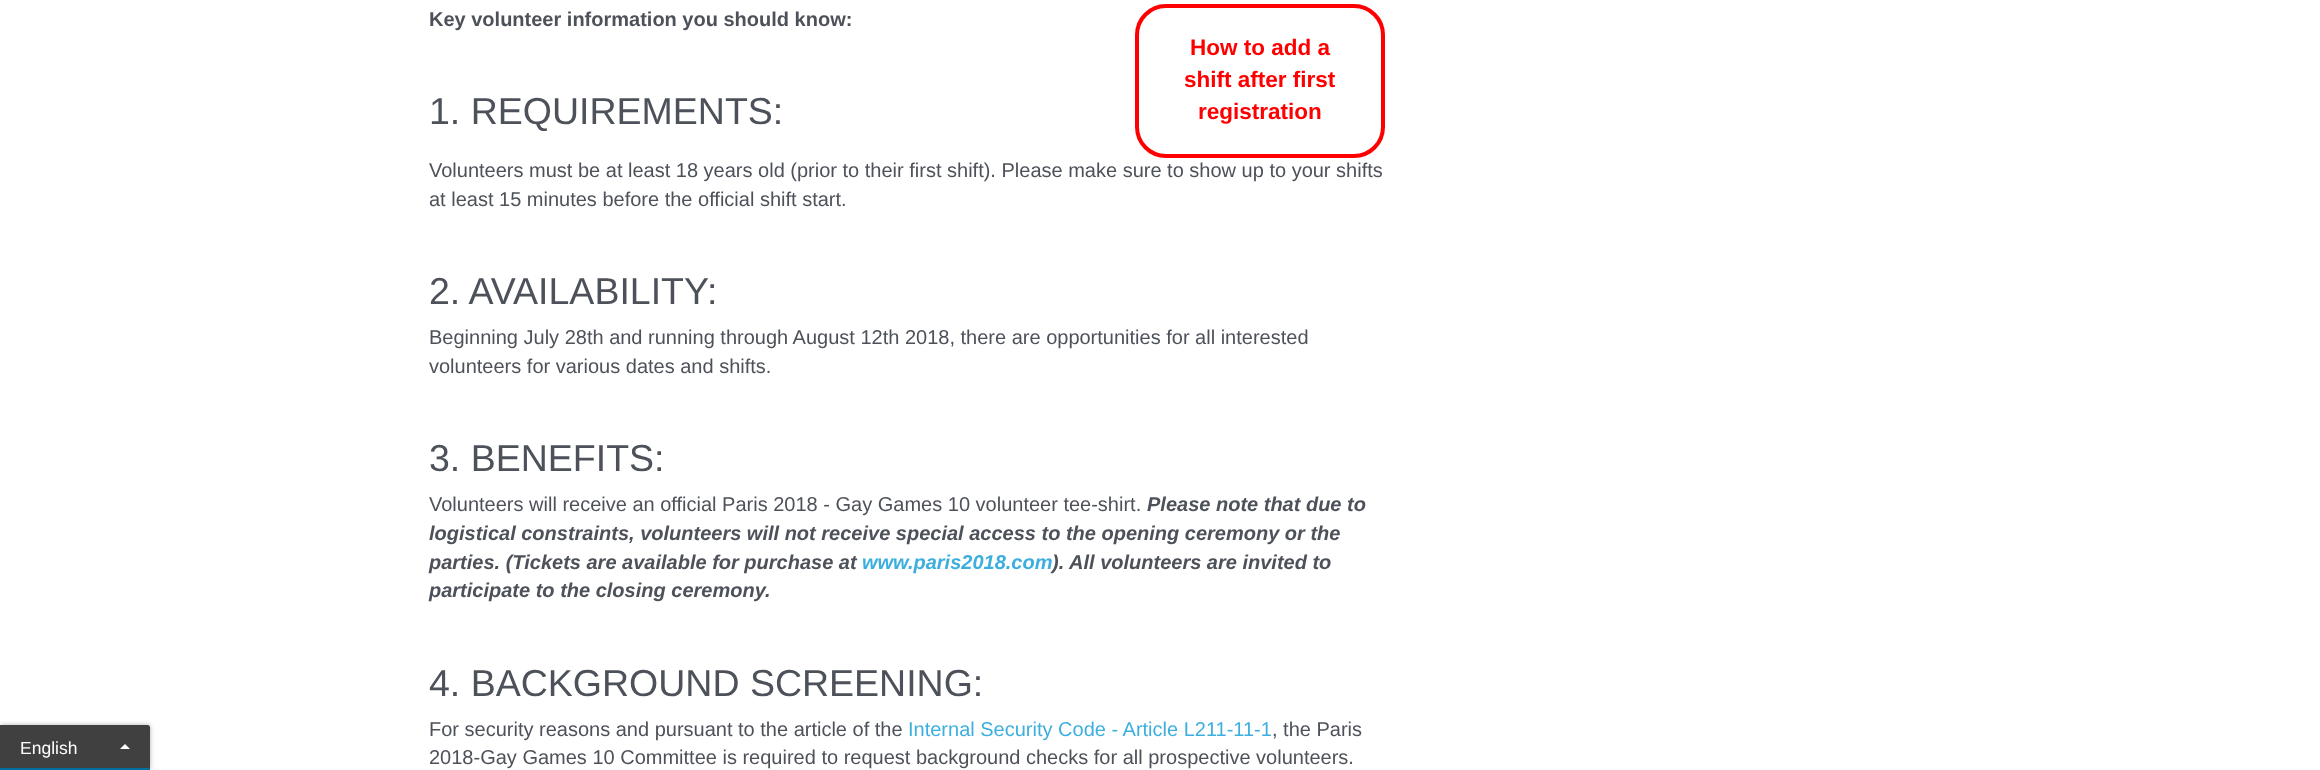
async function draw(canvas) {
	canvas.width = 2320;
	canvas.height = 770;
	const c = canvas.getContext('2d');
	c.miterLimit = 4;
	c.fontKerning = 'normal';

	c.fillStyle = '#fff';
	c.fillRect(0, 0, 2320, 770);
	c.save();
	c.beginPath();
	c.moveTo(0, 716);
	c.lineTo(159, 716);
	c.lineTo(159, 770);
	c.lineTo(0, 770);
	c.closePath();
	c.moveTo(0, 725);
	c.lineTo(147.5, 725);
	c.bezierCurveTo(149, 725, 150, 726, 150, 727.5);
	c.lineTo(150, 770);
	c.lineTo(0, 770);
	c.closePath();
	c.clip('evenodd');
	c.fillStyle = '#0000004d';
	c.filter = 'blur(2.5px)';
	c.beginPath();
	c.roundRect(0, 725, 150, 45, 2.5);
	c.fill();
	c.filter = 'none';
	c.restore();
	c.fillStyle = '#000000bf';
	c.beginPath();
	c.roundRect(0, 725, 150, 45, [0, 2.5, 0, 0]);
	c.fill();
	c.fillStyle = '#006f9f';
	c.fillRect(0, 768, 150, 2);
	c.font = '17.5px Liberation Sans';
	c.fillStyle = '#fff';
	c.fillText('English', 20, 754);
	c.beginPath();
	c.moveTo(130, 749);
	c.lineTo(120, 749);
	c.lineTo(125, 744);
	c.closePath();
	c.fill();
	c.font = 'bold 20px Liberation Sans';
	c.fillStyle = '#4d5159';
	c.fillText('Key volunteer information you should know:', 429, 26);
	c.font = '37.5px Liberation Sans';
	c.fillText('1. REQUIREMENTS:', 429, 124);
	c.beginPath();
	c.roundRect(1137, 6, 246, 150, 29);
	c.strokeStyle = '#f00';
	c.lineWidth = 4;
	c.stroke();
	c.font = 'bold 22.5px Liberation Sans';
	c.fillStyle = '#f00';
	for (const [text, x, y] of [
		['How to add a', 1190, 55],
		['shift after first', 1184, 87],
		['registration', 1198, 119],
	]) {
		c.fillText(text, x, y);
	}
	c.font = '20px Liberation Sans';
	c.fillStyle = '#4d5159';
	c.fillText('Volunteers must be at least 18 years old (prior to their first shift). Please make sure to show up to your shifts', 429, 177);
	c.fillText('at least 15 minutes before the official shift start.', 429, 206);
	c.font = '37.5px Liberation Sans';
	c.fillText('2. AVAILABILITY:', 429, 304);
	c.font = '20px Liberation Sans';
	c.fillText('Beginning July 28th and running through August 12th 2018, there are opportunities for all interested', 429, 344);
	c.fillText('volunteers for various dates and shifts.', 429, 373);
	c.font = '37.5px Liberation Sans';
	c.fillText('3. BENEFITS:', 429, 471);
	c.font = '20px Liberation Sans';
	c.fillText('Volunteers will receive an official Paris 2018 - Gay Games 10 volunteer tee-shirt.', 429, 511);
	c.font = 'italic bold 20px Liberation Sans';
	for (const [text, x, y] of [
		['Please note that due to', 1147, 511],
		['logistical constraints, volunteers will not receive special access to the opening ceremony or the', 429, 540],
		['parties. (Tickets are available for purchase at', 429, 569],
	]) {
		c.fillText(text, x, y);
	}
	c.fillStyle = '#3dafde';
	c.fillText('www.paris2018.com', 862, 569);
	c.fillStyle = '#4d5159';
	c.fillText('). All volunteers are invited to', 1052, 569);
	c.fillText('participate to the closing ceremony.', 429, 597);
	c.font = '37.5px Liberation Sans';
	c.fillText('4. BACKGROUND SCREENING:', 429, 696);
	c.font = '20px Liberation Sans';
	c.fillText('For security reasons and pursuant to the article of the', 429, 736);
	c.fillStyle = '#3dafde';
	c.fillText('Internal Security Code - Article L211-11-1', 908, 736);
	c.fillStyle = '#4d5159';
	c.fillText(', the Paris', 1272, 736);
	c.fillText('2018-Gay Games 10 Committee is required to request background checks for all prospective volunteers.', 429, 764);
}

draw(document.querySelector('canvas'));
